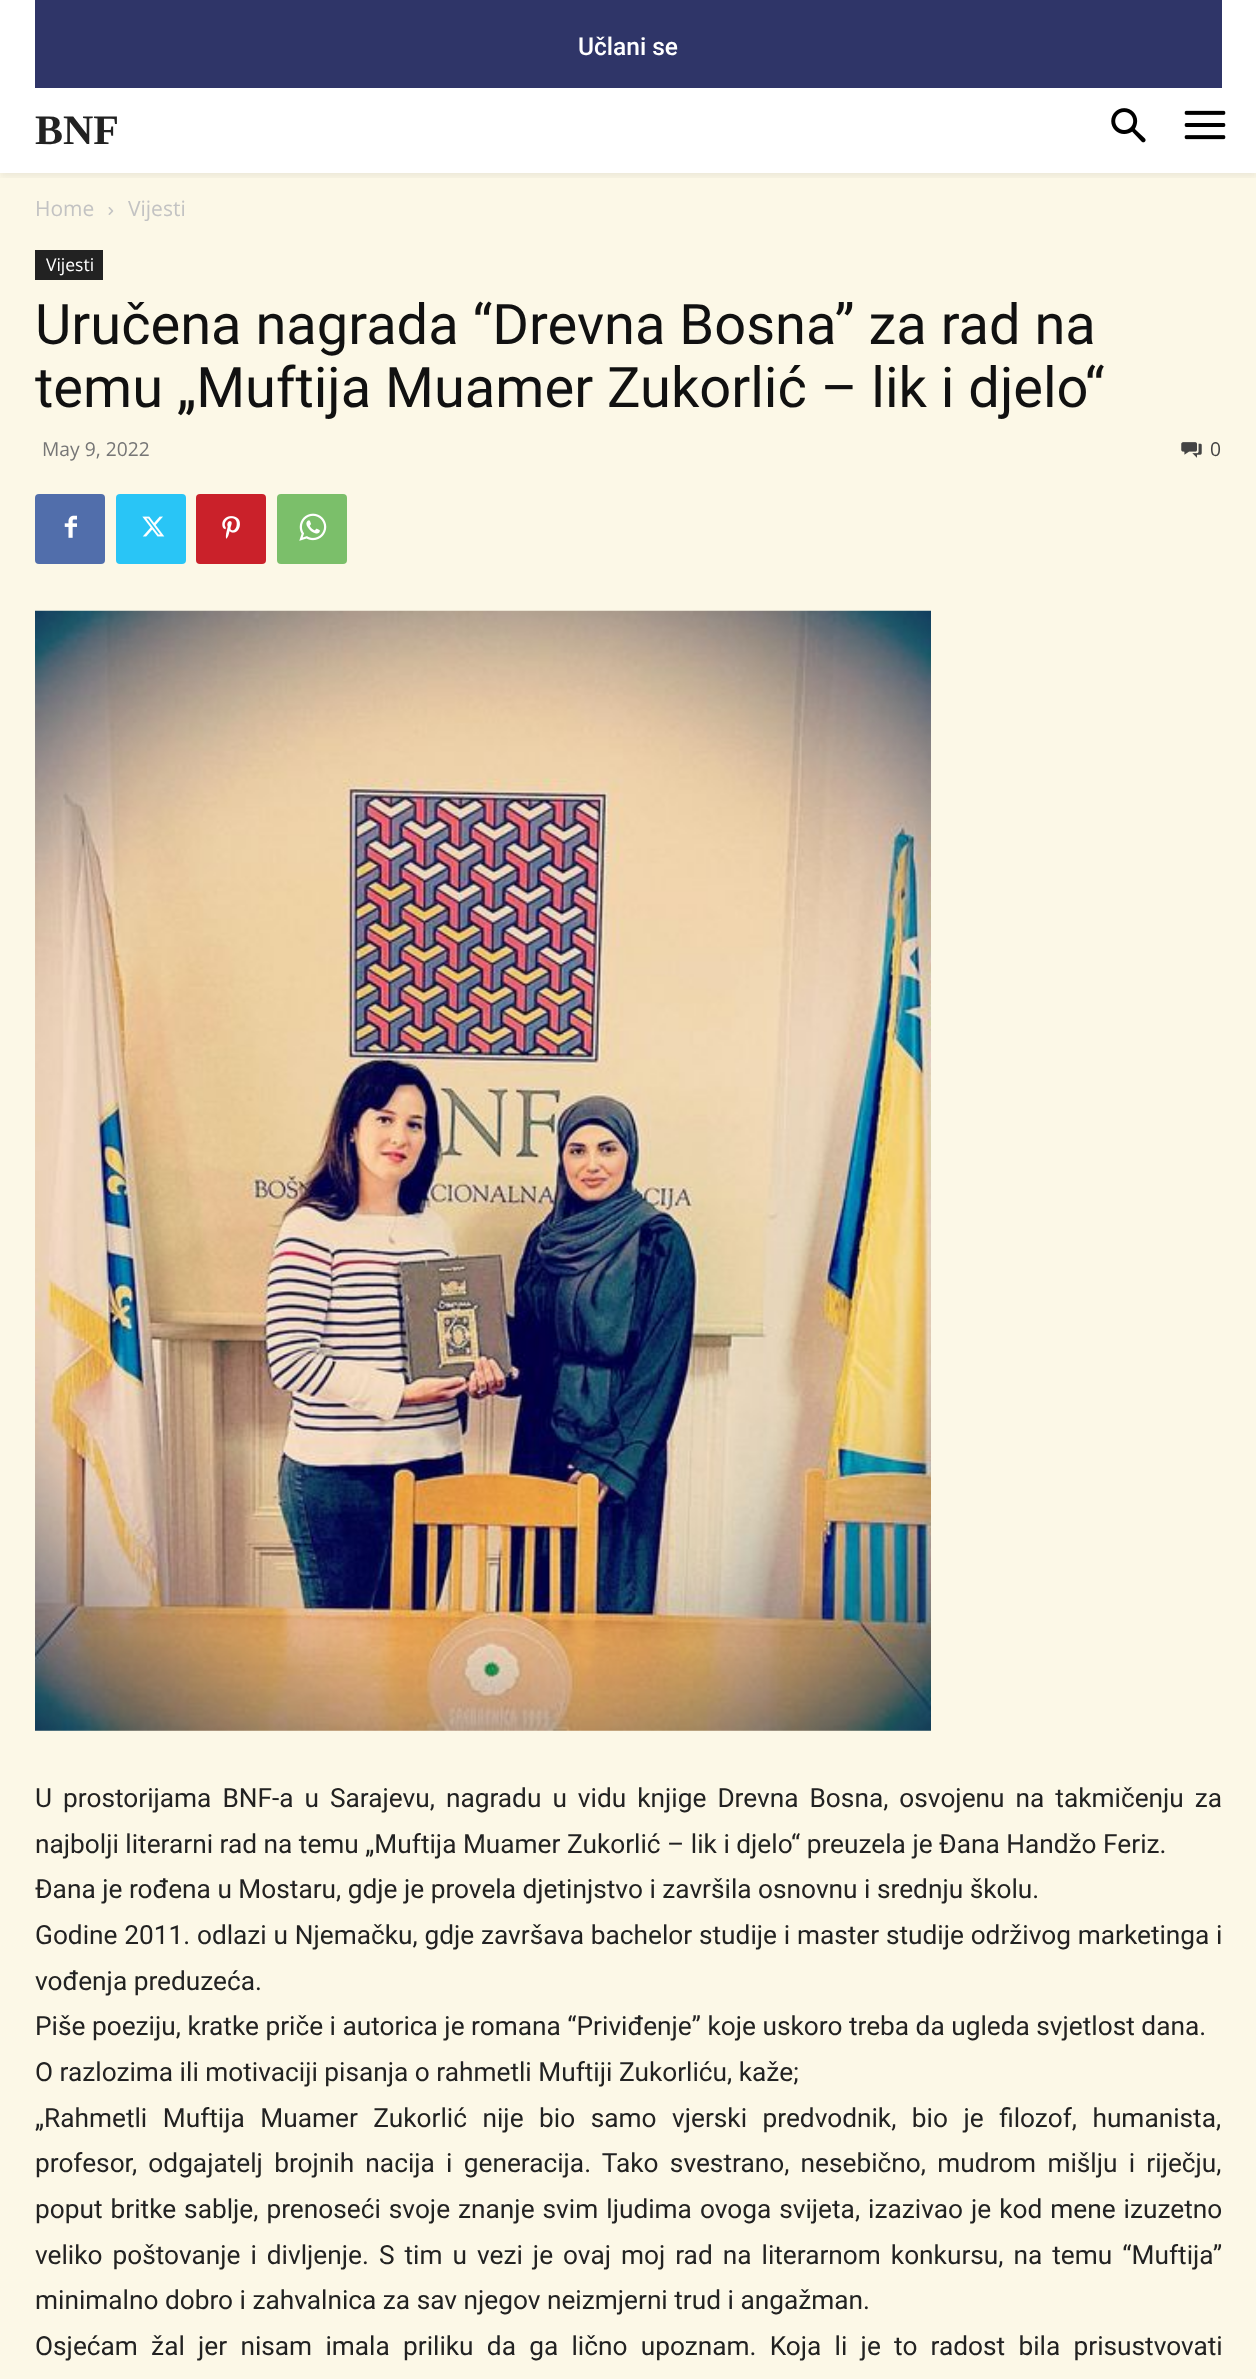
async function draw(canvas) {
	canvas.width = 1256;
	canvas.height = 2379;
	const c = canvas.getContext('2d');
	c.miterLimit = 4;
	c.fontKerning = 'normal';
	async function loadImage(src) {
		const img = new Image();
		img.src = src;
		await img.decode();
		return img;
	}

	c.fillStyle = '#fcf8e7';
	c.fillRect(0, 0, 1256, 2379);
	c.fillStyle = '#fff';
	c.fillRect(0, 0, 1256, 173);
	c.fillStyle = '#2f3568';
	c.fillRect(35, 0, 1187, 88);
	c.drawImage(await loadImage('img1.png'), 1111, 108, 35, 35);
	c.drawImage(await loadImage('img2.png'), 1184, 110, 42, 30);
	c.save();
	c.beginPath();
	c.rect(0, 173, 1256, 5);
	c.clip();
	c.fillStyle = '#0000000f';
	c.filter = 'blur(3.5px)';
	c.beginPath();
	c.rect(0, 4, 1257, 173);
	c.fill();
	c.filter = 'none';
	c.restore();
	c.font = '500 24.5px Roboto';
	c.fillStyle = '#fff';
	c.fillText('Učlani se', 578, 55);
	c.font = 'bold 42px Liberation Serif';
	c.fillStyle = '#222';
	c.fillText('BNF', 35, 144);
	c.font = '21px Open Sans';
	c.fillStyle = '#c3c3c3';
	c.fillText('Home', 35, 216);
	c.drawImage(await loadImage('img3.png'), 108, 207, 6, 8);
	c.fillText('Vijesti', 128, 216);
	c.fillStyle = '#222';
	c.fillRect(35, 250, 68, 30);
	c.font = '17.5px Open Sans';
	c.fillStyle = '#fff';
	c.fillText('Vijesti', 46, 271);
	c.font = '56px Roboto';
	c.fillStyle = '#111';
	c.fillText('Uručena nagrada “Drevna Bosna” za rad na', 35, 344);
	c.fillText('temu „Muftija Muamer Zukorlić – lik i djelo“', 35, 407);
	c.font = '19.25px Open Sans';
	c.fillStyle = '#767676';
	c.fillText('May 9, 2022', 42, 456);
	c.drawImage(await loadImage('img4.png'), 1181, 442, 21, 16);
	c.fillStyle = '#444';
	c.fillText('0', 1210, 456);
	c.fillStyle = '#516eab';
	c.beginPath();
	c.roundRect(35, 494, 70, 70, 4);
	c.fill();
	c.drawImage(await loadImage('img5.png'), 64, 515, 13, 23);
	c.fillStyle = '#29c5f6';
	c.beginPath();
	c.roundRect(116, 494, 70, 70, 4);
	c.fill();
	c.drawImage(await loadImage('img6.png'), 142, 516, 23, 21);
	c.fillStyle = '#ca212a';
	c.beginPath();
	c.roundRect(196, 494, 70, 70, 4);
	c.fill();
	c.drawImage(await loadImage('img7.png'), 222, 516, 18, 23);
	c.fillStyle = '#7bbf6a';
	c.beginPath();
	c.roundRect(277, 494, 70, 70, 4);
	c.fill();
	c.drawImage(await loadImage('img8.png'), 299, 513, 28, 28);
	c.drawImage(await loadImage('img9.png'), 35, 610, 896, 1121);
	c.wordSpacing = '4.5px';
	c.font = '26.25px Roboto';
	c.fillStyle = '#222';
	c.fillText('U prostorijama BNF-a u Sarajevu, nagradu u vidu knjige Drevna Bosna, osvojenu na takmičenju za', 35, 1807);
	c.wordSpacing = '0px';
	c.fillText('najbolji literarni rad na temu „Muftija Muamer Zukorlić – lik i djelo“ preuzela je Ðana Handžo Feriz.', 35, 1853);
	c.fillText('Đana je rođena u Mostaru, gdje je provela djetinjstvo i završila osnovnu i srednju školu.', 35, 1898);
	c.wordSpacing = '0.25px';
	c.fillText('Godine 2011. odlazi u Njemačku, gdje završava bachelor studije i master studije održivog marketinga i', 35, 1944);
	c.wordSpacing = '0px';
	for (const [text, x, y] of [
		['vođenja preduzeća.', 35, 1990],
		['Piše poeziju, kratke priče i autorica je romana “Priviđenje” koje uskoro treba da ugleda svjetlost dana.', 35, 2035],
		['O razlozima ili motivaciji pisanja o rahmetli Muftiji Zukorliću, kaže;', 35, 2081],
	]) {
		c.fillText(text, x, y);
	}
	c.wordSpacing = '9px';
	c.fillText('„Rahmetli Muftija Muamer Zukorlić nije bio samo vjerski predvodnik, bio je filozof, humanista,', 35, 2127);
	c.wordSpacing = '4.75px';
	c.fillText('profesor, odgajatelj brojnih nacija i generacija. Tako svestrano, nesebično, mudrom mišlju i riječju,', 35, 2172);
	c.wordSpacing = '1.5px';
	c.fillText('poput britke sablje, prenoseći svoje znanje svim ljudima ovoga svijeta, izazivao je kod mene izuzetno', 35, 2218);
	c.wordSpacing = '3.5px';
	c.fillText('veliko poštovanje i divljenje. S tim u vezi je ovaj moj rad na literarnom konkursu, na temu “Muftija”', 35, 2264);
	c.wordSpacing = '0px';
	c.fillText('minimalno dobro i zahvalnica za sav njegov neizmjerni trud i angažman.', 35, 2309);
	c.wordSpacing = '6.75px';
	c.fillText('Osjećam žal jer nisam imala priliku da ga lično upoznam. Koja li je to radost bila prisustvovati', 35, 2355);
}

draw(document.querySelector('canvas'));
